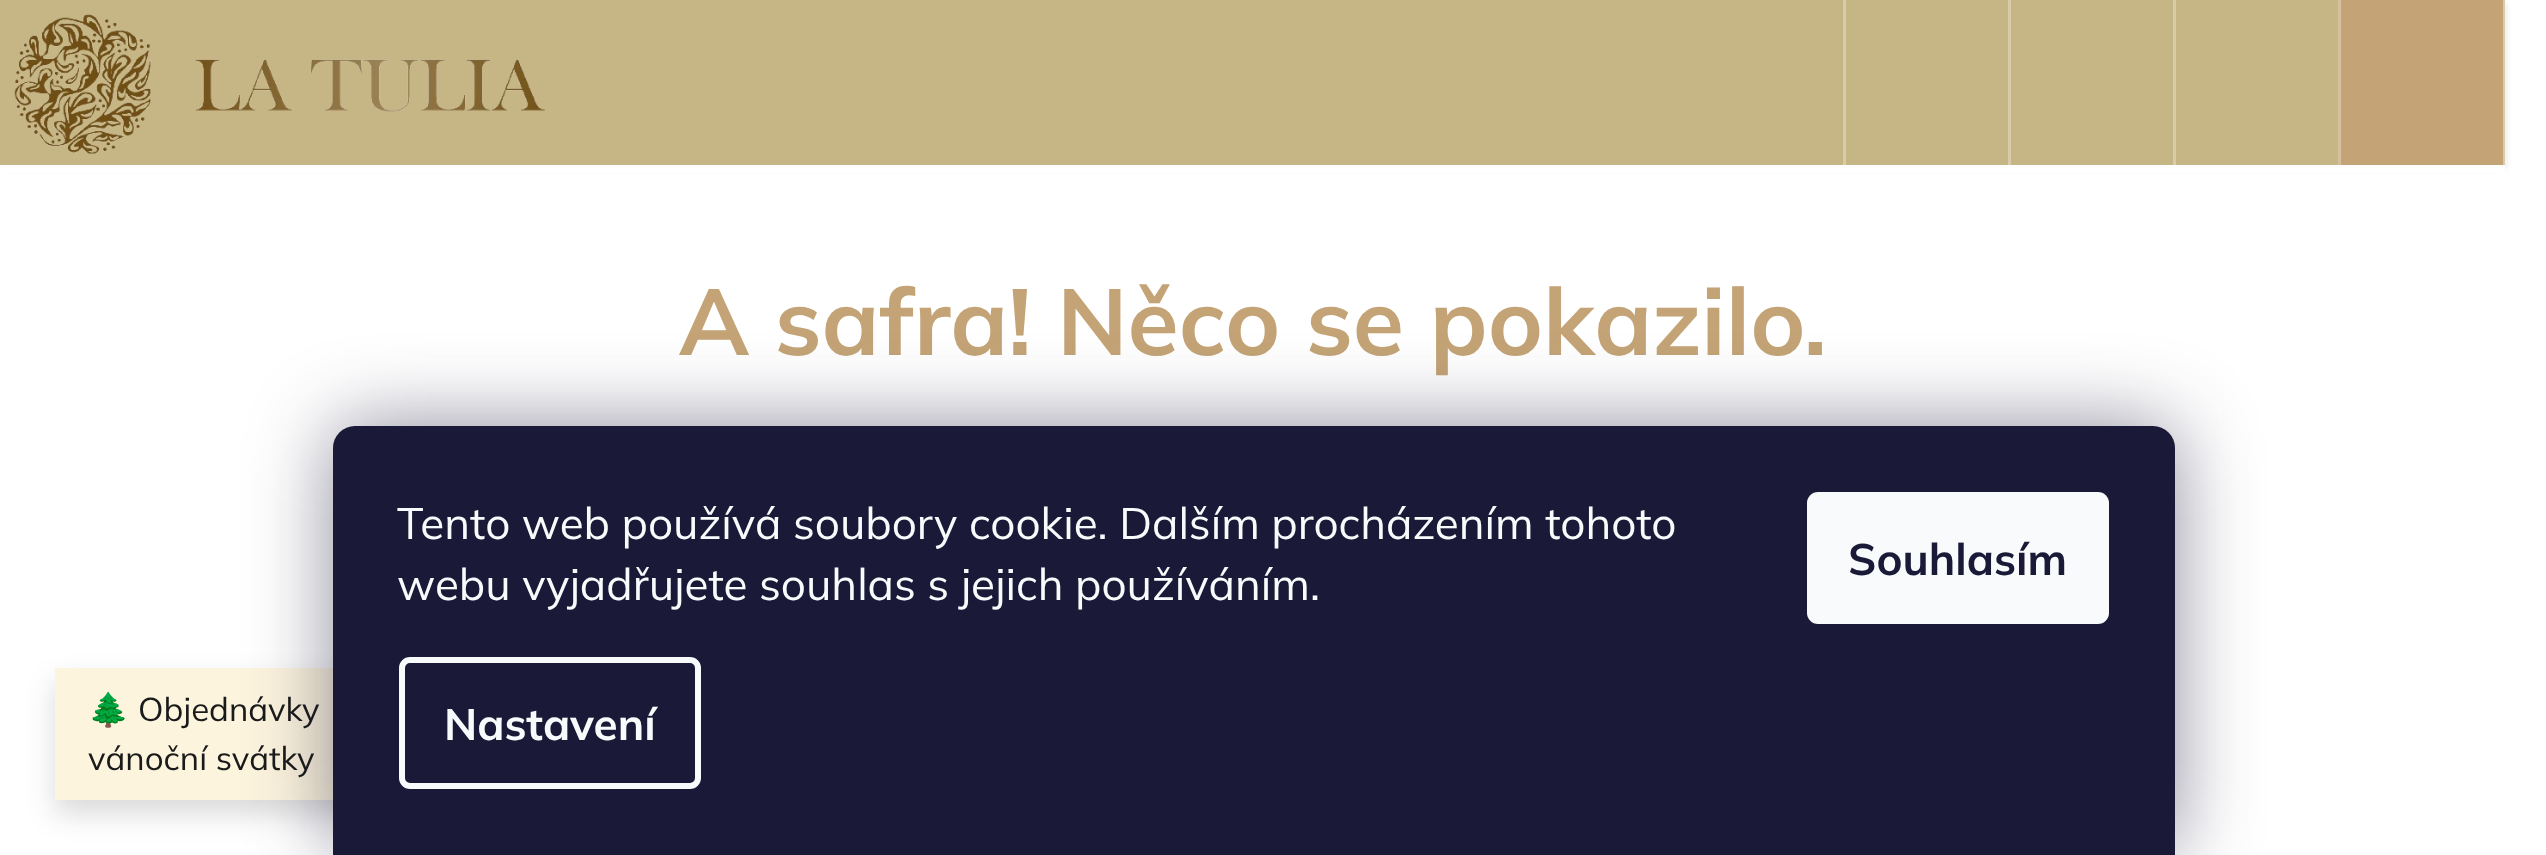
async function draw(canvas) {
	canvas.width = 2546;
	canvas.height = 855;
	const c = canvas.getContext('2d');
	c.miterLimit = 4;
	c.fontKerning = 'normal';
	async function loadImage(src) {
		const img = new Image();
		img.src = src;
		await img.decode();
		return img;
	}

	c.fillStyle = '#fff';
	c.fillRect(0, 0, 2546, 855);
	c.fillStyle = '#00000029';
	c.filter = 'blur(3px)';
	c.beginPath();
	c.rect(0, 3, 2505, 165);
	c.fill();
	c.filter = 'none';
	c.fillStyle = '#c7b685';
	c.fillRect(0, 0, 2505, 165);
	c.drawImage(await loadImage('img1.png'), 14, 14, 531, 140);
	for (const [x, y, w, h, color] of [
		[2503, 0, 3, 165, '#ffffff4d'],
		[1843, 0, 3, 165, '#d8ccaa'],
		[2008, 0, 3, 165, '#d8ccaa'],
		[2173, 0, 3, 165, '#d8ccaa'],
		[2341, 0, 162, 165, '#c4a476'],
		[2338, 0, 3, 165, '#d6bf9f'],
		[0, 165, 2505, 8, '#fff'],
	]) {
		c.fillStyle = color;
		c.fillRect(x, y, w, h);
	}
	c.font = 'bold 93.5px Mulish';
	c.fillStyle = '#c4a476';
	c.fillText('A safra! Něco se pokazilo.', 679, 355);
	c.fillStyle = '#1a1a1a29';
	c.filter = 'blur(14px)';
	c.beginPath();
	c.rect(55, 682, 1320, 132);
	c.fill();
	c.filter = 'none';
	c.fillStyle = '#fdf4de';
	c.fillRect(55, 668, 278, 132);
	c.font = '33px Noto Color Emoji';
	c.fillStyle = '#1a1a1a';
	c.fillText('🌲', 88, 721);
	c.font = '33px Mulish';
	c.fillText('Objednávky', 138, 721);
	c.fillText('vánoční svátky', 88, 770);
	c.fillStyle = '#1b193980';
	c.filter = 'blur(41px)';
	c.beginPath();
	c.roundRect(333, 426, 1842, 429, 22);
	c.fill();
	c.filter = 'none';
	c.fillStyle = '#1a1937';
	c.beginPath();
	c.roundRect(333, 426, 1842, 429, [22, 22, 0, 0]);
	c.fill();
	c.font = '44px Mulish';
	c.fillStyle = '#f8fafb';
	c.fillText('Tento web používá soubory cookie. Dalším procházením tohoto', 397, 539);
	c.fillText('webu vyjadřujete souhlas s jejich používáním.', 397, 600);
	c.beginPath();
	c.roundRect(402, 660, 296, 126, 8);
	c.strokeStyle = '#f8fafb';
	c.lineWidth = 6;
	c.stroke();
	c.font = 'bold 44px Mulish';
	c.fillText('Nastavení', 444, 740);
	c.beginPath();
	c.roundRect(1807, 492, 302, 132, 11);
	c.fill();
	c.fillStyle = '#1a1937';
	c.fillText('Souhlasím', 1848, 575);
}

draw(document.querySelector('canvas'));
